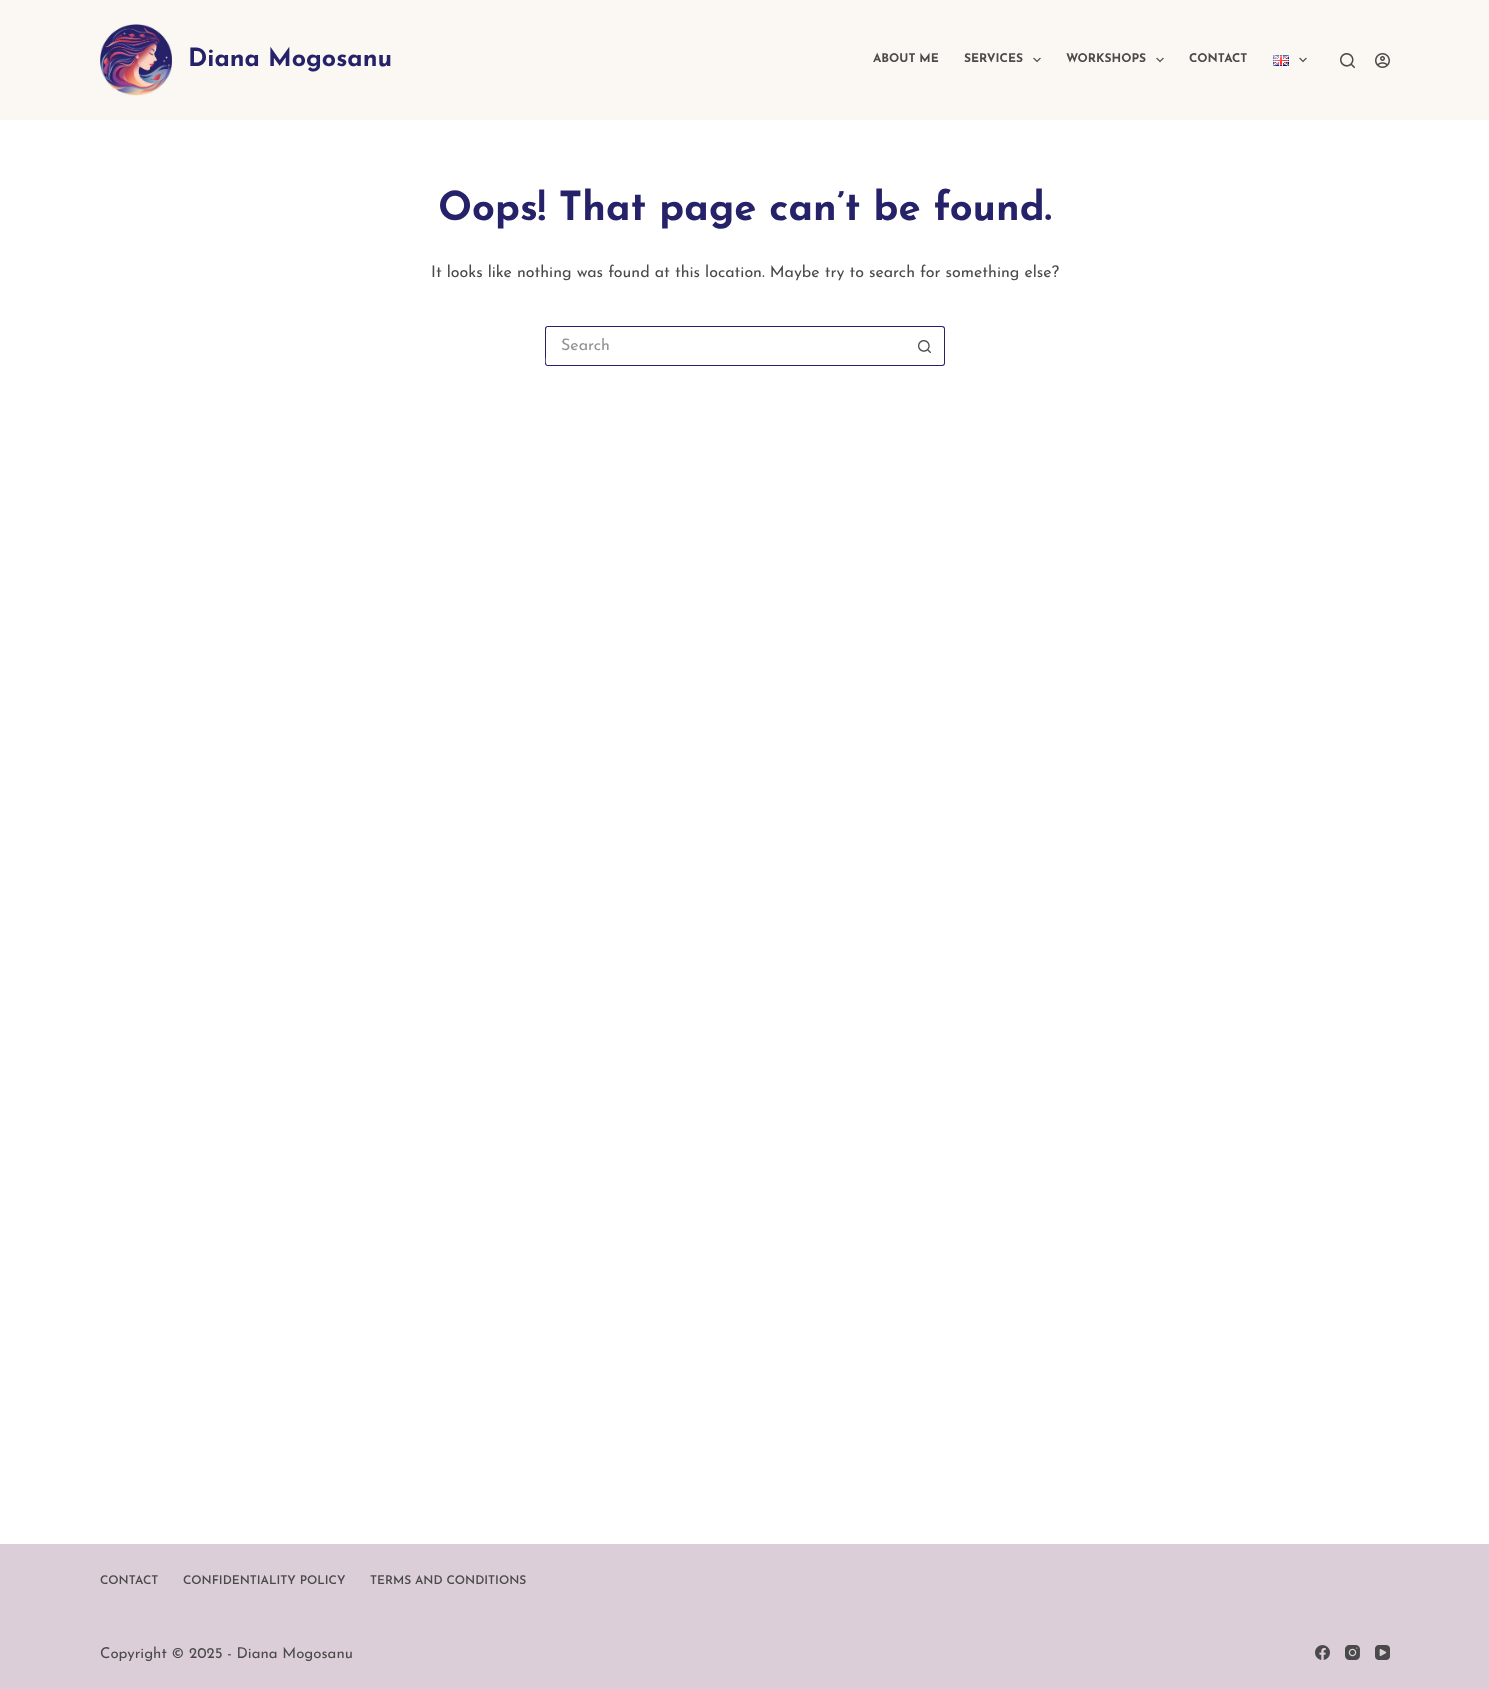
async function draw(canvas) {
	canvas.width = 1489;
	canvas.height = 1689;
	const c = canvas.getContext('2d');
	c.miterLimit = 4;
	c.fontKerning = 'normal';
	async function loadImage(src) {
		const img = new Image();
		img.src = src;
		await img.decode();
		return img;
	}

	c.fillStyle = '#fff';
	c.fillRect(0, 0, 1489, 1689);
	c.fillStyle = '#fbf8f3';
	c.fillRect(0, 0, 1489, 120);
	c.drawImage(await loadImage('img1.png'), 100, 24, 72, 72);
	c.font = 'bold 25px Josefin Sans';
	c.fillStyle = '#252269';
	c.fillText('Diana Mogosanu', 188, 66);
	c.font = 'bold 12px Josefin Sans';
	c.fillStyle = '#4a4a4a';
	c.fillText('ABOUT ME', 873, 62);
	c.fillText('SERVICES', 964, 62);
	c.drawImage(await loadImage('img2.png'), 1033, 57, 8, 6);
	c.fillText('WORKSHOPS', 1066, 62);
	c.drawImage(await loadImage('img2.png'), 1156, 57, 8, 6);
	c.fillText('CONTACT', 1189, 62);
	c.drawImage(await loadImage('img3.png'), 1273, 55, 16, 11);
	c.drawImage(await loadImage('img2.png'), 1299, 57, 8, 6);
	c.drawImage(await loadImage('img4.png'), 1340, 53, 15, 15);
	c.drawImage(await loadImage('img5.png'), 1375, 53, 15, 15);
	c.font = 'bold 40px Josefin Sans';
	c.fillStyle = '#252269';
	c.fillText('Oops! That page can’t be found.', 438, 220);
	c.font = '16px Josefin Sans';
	c.fillStyle = '#4a4a4a';
	c.fillText('It looks like nothing was found at this location. Maybe try to search for something else?', 431, 277);
	c.fillStyle = '#272169';
	c.beginPath();
	c.moveTo(548, 326);
	c.lineTo(905, 326);
	c.lineTo(905, 366);
	c.lineTo(548, 366);
	c.bezierCurveTo(546, 366, 545, 365, 545, 363);
	c.lineTo(545, 329);
	c.bezierCurveTo(545, 327, 546, 326, 548, 326);
	c.closePath();
	c.moveTo(548, 327);
	c.lineTo(905, 327);
	c.lineTo(905, 365);
	c.lineTo(547, 365);
	c.bezierCurveTo(545, 363, 546, 358, 546, 357);
	c.lineTo(546, 329);
	c.lineTo(547, 327);
	c.closePath();
	c.fill('evenodd');
	c.save();
	c.beginPath();
	c.rect(561, 338, 325, 16);
	c.clip();
	c.fillStyle = '#929292';
	c.fillText('Search', 561, 350);
	c.restore();
	c.beginPath();
	c.moveTo(905, 326);
	c.lineTo(942, 326);
	c.bezierCurveTo(944, 326, 945, 327, 945, 329);
	c.lineTo(945, 363);
	c.bezierCurveTo(945, 365, 944, 366, 942, 366);
	c.lineTo(905, 366);
	c.closePath();
	c.moveTo(905, 327);
	c.lineTo(942, 327);
	c.bezierCurveTo(943, 327, 944, 328, 944, 329);
	c.lineTo(944, 363);
	c.bezierCurveTo(944, 364, 943, 365, 942, 365);
	c.lineTo(905, 365);
	c.closePath();
	c.fill('evenodd');
	c.drawImage(await loadImage('img6.png'), 918, 340, 13, 13);
	c.fillStyle = '#dbced8';
	c.fillRect(0, 1544, 1489, 145);
	c.font = '600 12px Josefin Sans';
	c.fillStyle = '#4a4a4a';
	for (const [text, x, y] of [
		['CONTACT', 100, 1584],
		['CONFIDENTIALITY POLICY', 183, 1584],
		['TERMS AND CONDITIONS', 370, 1584],
	]) {
		c.fillText(text, x, y);
	}
	c.font = '15px Josefin Sans';
	c.fillText('Copyright © 2025 - Diana Mogosanu', 100, 1658);
	c.drawImage(await loadImage('img7.png'), 1315, 1645, 15, 15);
	c.drawImage(await loadImage('img8.png'), 1345, 1645, 15, 15);
	c.drawImage(await loadImage('img9.png'), 1375, 1645, 15, 15);
}

draw(document.querySelector('canvas'));
